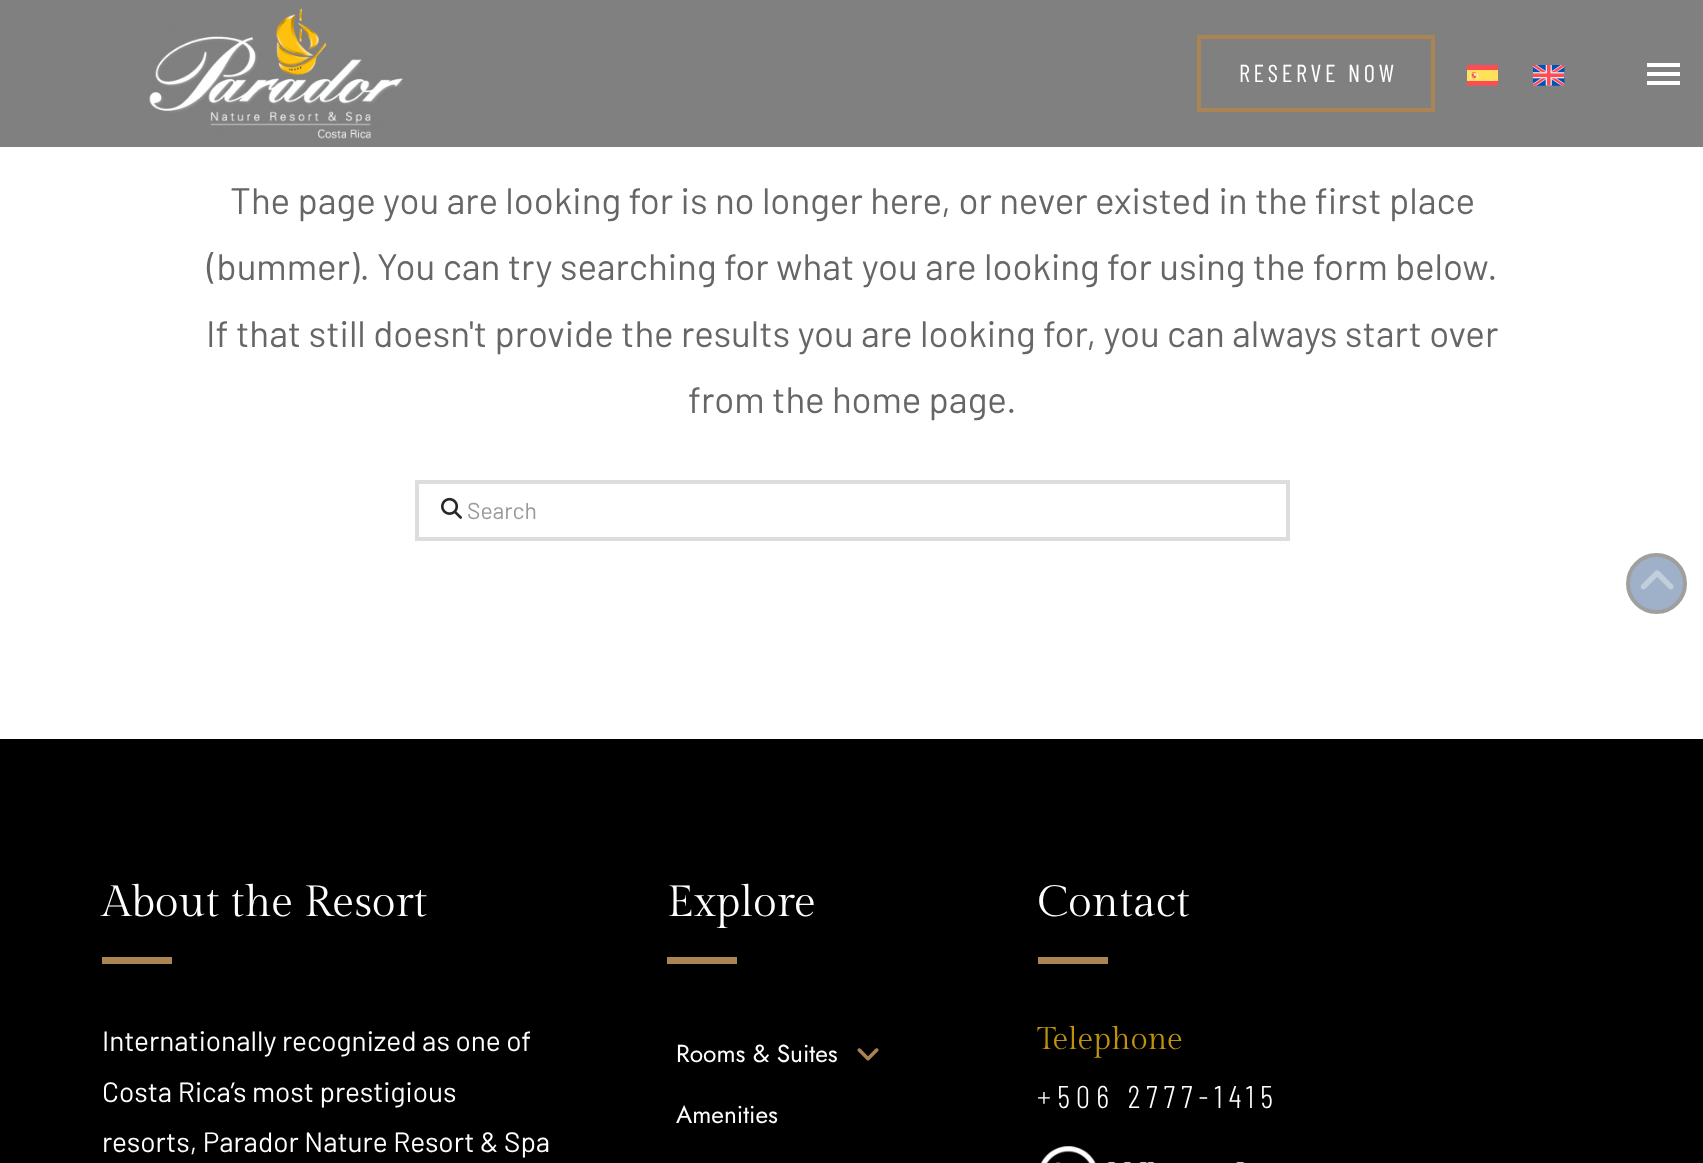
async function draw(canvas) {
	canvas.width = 1703;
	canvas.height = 1163;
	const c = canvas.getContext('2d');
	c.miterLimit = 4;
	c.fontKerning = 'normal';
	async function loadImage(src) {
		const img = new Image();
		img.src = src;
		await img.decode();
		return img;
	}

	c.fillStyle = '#fff';
	c.fillRect(0, 0, 1703, 1163);
	c.fillStyle = '#808080';
	c.fillRect(0, 0, 1703, 147);
	c.drawImage(await loadImage('img1.png'), 149, 8, 254, 131);
	c.strokeStyle = '#ab8453';
	c.lineWidth = 4;
	c.strokeRect(1199, 37, 234, 73);
	c.letterSpacing = '3.75px';
	c.font = '24.5px Barlow Condensed';
	c.fillStyle = '#fff';
	c.fillText('RESERVE NOW', 1239, 82);
	c.drawImage(await loadImage('img2.png'), 1467, 65, 31, 21);
	c.drawImage(await loadImage('img3.png'), 1533, 65, 32, 21);
	for (const [x, y, w, h, color] of [
		[1647, 63, 33, 4, '#fff'],
		[1647, 72, 33, 4, '#fff'],
		[1647, 81, 33, 4, '#fff'],
	]) {
		c.fillStyle = color;
		c.fillRect(x, y, w, h);
	}
	c.letterSpacing = '0px';
	c.font = '36.75px Barlow';
	c.fillStyle = '#666';
	for (const [text, x, y] of [
		['The page you are looking for is no longer here, or never existed in the first place', 230, 214],
		['(bummer). You can try searching for what you are looking for using the form below.', 207, 280],
		['If that still doesn\'t provide the results you are looking for, you can always start over', 206, 347],
		['from the home page.', 688, 413],
	]) {
		c.fillText(text, x, y);
	}
	c.strokeStyle = '#ddd';
	c.strokeRect(417, 482, 871, 57);
	c.drawImage(await loadImage('img4.png'), 441, 497, 21, 22);
	c.font = '23px Barlow';
	c.fillStyle = '#999';
	c.fillText('Search', 467, 519);
	c.fillStyle = '#000';
	c.fillRect(0, 739, 1703, 424);
	c.font = '43.75px Gilda Display';
	c.fillStyle = '#fff';
	c.fillText('About the Resort', 102, 916);
	c.fillStyle = '#ab8453';
	c.fillRect(102, 957, 70, 7);
	c.font = '28px Barlow';
	c.fillStyle = '#fff';
	for (const [text, x, y] of [
		['Internationally recognized as one of', 102, 1051],
		['Costa Rica’s most prestigious', 102, 1102],
		['resorts, Parador Nature Resort & Spa', 102, 1152],
	]) {
		c.fillText(text, x, y);
	}
	c.font = '43.75px Gilda Display';
	c.fillText('Explore', 667, 916);
	c.fillStyle = '#ab8453';
	c.fillRect(667, 957, 70, 7);
	c.font = '24.5px Jost';
	c.fillStyle = '#fff';
	c.fillText('Rooms & Suites', 676, 1062);
	c.drawImage(await loadImage('img5.png'), 857, 1048, 22, 13);
	c.fillText('Amenities', 676, 1123);
	c.font = '43.75px Gilda Display';
	c.fillText('Contact', 1037, 916);
	c.fillStyle = '#ab8453';
	c.fillRect(1038, 957, 70, 7);
	c.font = '31.5px Gilda Display';
	c.fillStyle = '#bf920b';
	c.fillText('Telephone', 1037, 1049);
	c.letterSpacing = '6.25px';
	c.font = '300 31.5px Barlow Condensed';
	c.fillStyle = '#fff';
	c.fillText('+506 2777-1415', 1037, 1108);
	c.drawImage(await loadImage('img6.png'), 1040, 1146, 205, 17);
	c.fillStyle = '#9fb1c8';
	c.beginPath();
	c.arc(1656.5, 583.5, 28.5, 0, 2 * Math.PI);
	c.fill();
	c.strokeStyle = '#9f9f9f';
	c.stroke();
	c.drawImage(await loadImage('img7.png'), 1640, 570, 34, 20);
}

draw(document.querySelector('canvas'));
